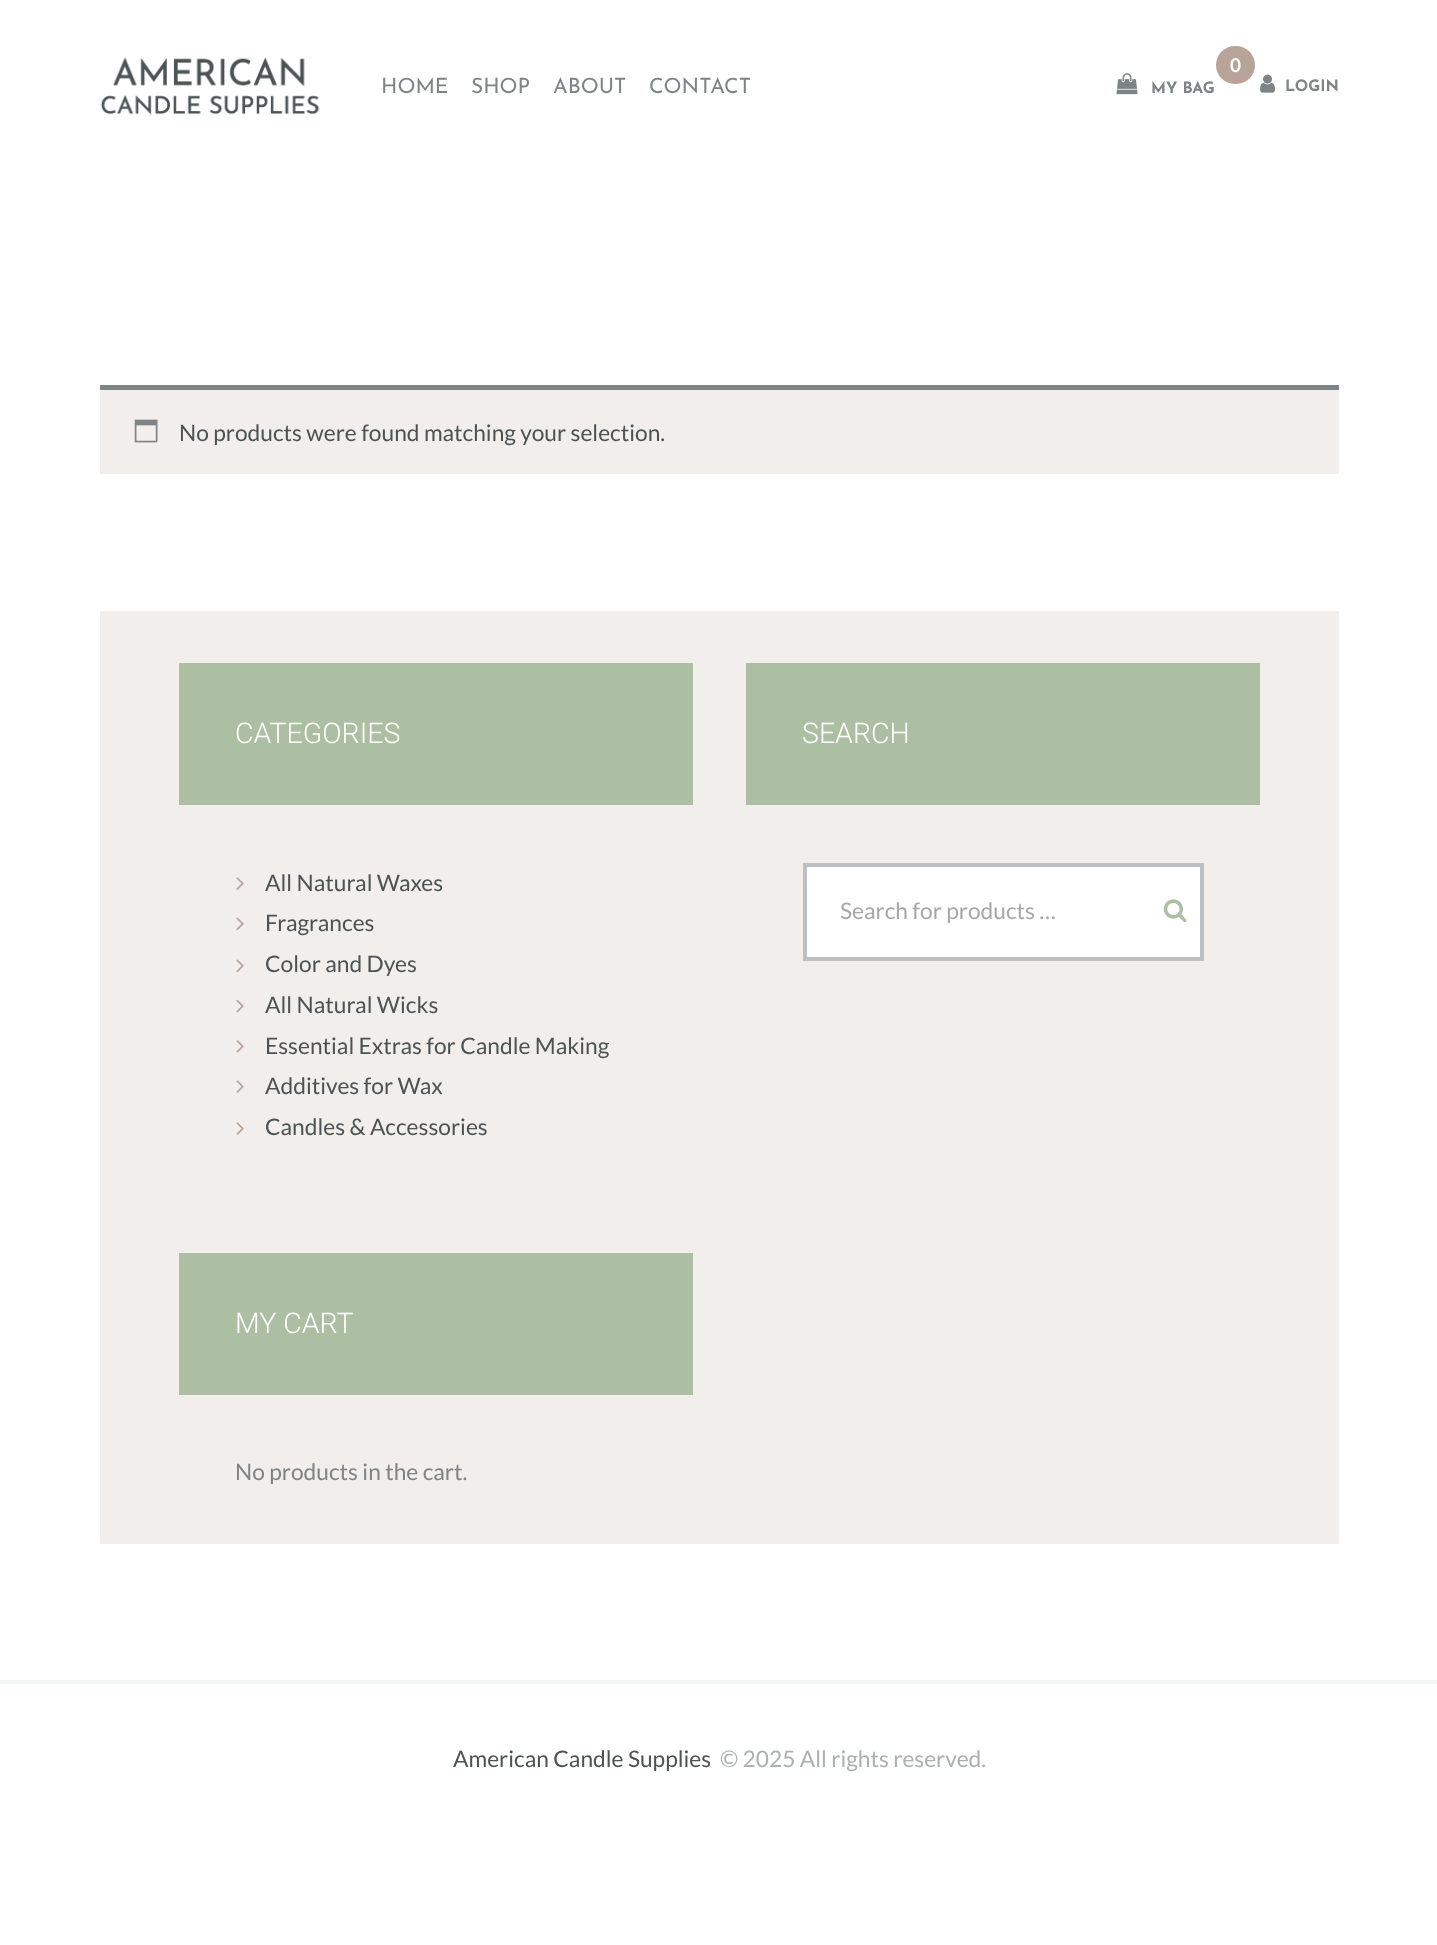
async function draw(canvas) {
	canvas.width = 1437;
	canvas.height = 1945;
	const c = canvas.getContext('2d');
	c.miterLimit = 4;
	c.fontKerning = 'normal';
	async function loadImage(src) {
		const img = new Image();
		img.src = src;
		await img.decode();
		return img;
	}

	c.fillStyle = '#fff';
	c.fillRect(0, 0, 1437, 1945);
	c.drawImage(await loadImage('img1.png'), 100, 57, 220, 58);
	c.font = '21px Josefin Sans';
	c.fillStyle = '#7e8485';
	for (const [text, x, y] of [
		['HOME', 381, 93],
		['SHOP', 471, 93],
		['ABOUT', 553, 93],
		['CONTACT', 649, 93],
	]) {
		c.fillText(text, x, y);
	}
	c.fillStyle = '#b8a398';
	c.beginPath();
	c.roundRect(1216, 46, 39, 38, 19);
	c.fill();
	c.font = 'bold 19px Lato';
	c.fillStyle = '#fff';
	c.fillText('0', 1230, 72);
	c.drawImage(await loadImage('img2.png'), 1116, 73, 22, 22);
	c.font = 'bold 15.75px Josefin Sans';
	c.fillStyle = '#7e8485';
	c.fillText('MY BAG', 1151, 93);
	c.drawImage(await loadImage('img3.png'), 1260, 74, 15, 19);
	c.fillText('LOGIN', 1285, 91);
	c.fillStyle = '#f2eeec';
	c.fillRect(100, 390, 1239, 84);
	c.fillStyle = '#7e8485';
	c.fillRect(100, 385, 1239, 5);
	c.drawImage(await loadImage('img4.png'), 134, 419, 24, 24);
	c.font = '22.75px Lato';
	c.fillStyle = '#4b5354';
	c.fillText('No products were found matching your selection.', 179, 441);
	c.fillStyle = '#f2eeec';
	c.fillRect(100, 611, 1239, 933);
	c.fillStyle = '#acbfa3';
	c.fillRect(179, 663, 514, 142);
	c.font = '300 28.5px Roboto';
	c.fillStyle = '#fff';
	c.fillText('CATEGORIES', 235, 743);
	c.drawImage(await loadImage('img5.png'), 236, 877, 8, 13);
	c.font = '22.75px Lato';
	c.fillStyle = '#4b5354';
	c.fillText('All Natural Waxes', 265, 891);
	c.drawImage(await loadImage('img6.png'), 236, 917, 8, 14);
	c.fillText('Fragrances', 265, 931);
	c.drawImage(await loadImage('img6.png'), 236, 959, 8, 14);
	c.fillText('Color and Dyes', 265, 972);
	c.drawImage(await loadImage('img7.png'), 236, 999, 8, 14);
	c.fillText('All Natural Wicks', 265, 1013);
	c.drawImage(await loadImage('img8.png'), 236, 1040, 8, 13);
	c.fillText('Essential Extras for Candle Making', 265, 1054);
	c.drawImage(await loadImage('img5.png'), 236, 1080, 8, 13);
	c.fillText('Additives for Wax', 265, 1094);
	c.drawImage(await loadImage('img5.png'), 236, 1122, 8, 13);
	c.fillText('Candles & Accessories', 265, 1135);
	c.fillStyle = '#acbfa3';
	c.fillRect(746, 663, 514, 142);
	c.font = '300 28.5px Roboto';
	c.fillStyle = '#fff';
	c.fillText('SEARCH', 802, 743);
	c.beginPath();
	c.rect(805, 865, 397, 94);
	c.fill();
	c.strokeStyle = '#bdc0c0';
	c.lineWidth = 4;
	c.stroke();
	c.font = '22.75px Lato';
	c.fillStyle = '#a7a7a7';
	c.fillText('Search for products …', 840, 919);
	c.drawImage(await loadImage('img9.png'), 1163, 899, 24, 24);
	c.fillStyle = '#acbfa3';
	c.fillRect(179, 1253, 514, 142);
	c.font = '300 28.5px Roboto';
	c.fillStyle = '#fff';
	c.fillText('MY CART', 235, 1333);
	c.font = '22.75px Lato';
	c.fillStyle = '#7e8485';
	c.fillText('No products in the cart.', 235, 1480);
	c.fillStyle = '#f4f5f5';
	c.fillRect(0, 1680, 1437, 4);
	c.fillStyle = '#4b5354';
	c.fillText('American Candle Supplies', 453, 1767);
	c.fillStyle = '#abb0b2';
	c.fillText('© 2025 All rights reserved.', 720, 1767);
}

draw(document.querySelector('canvas'));
